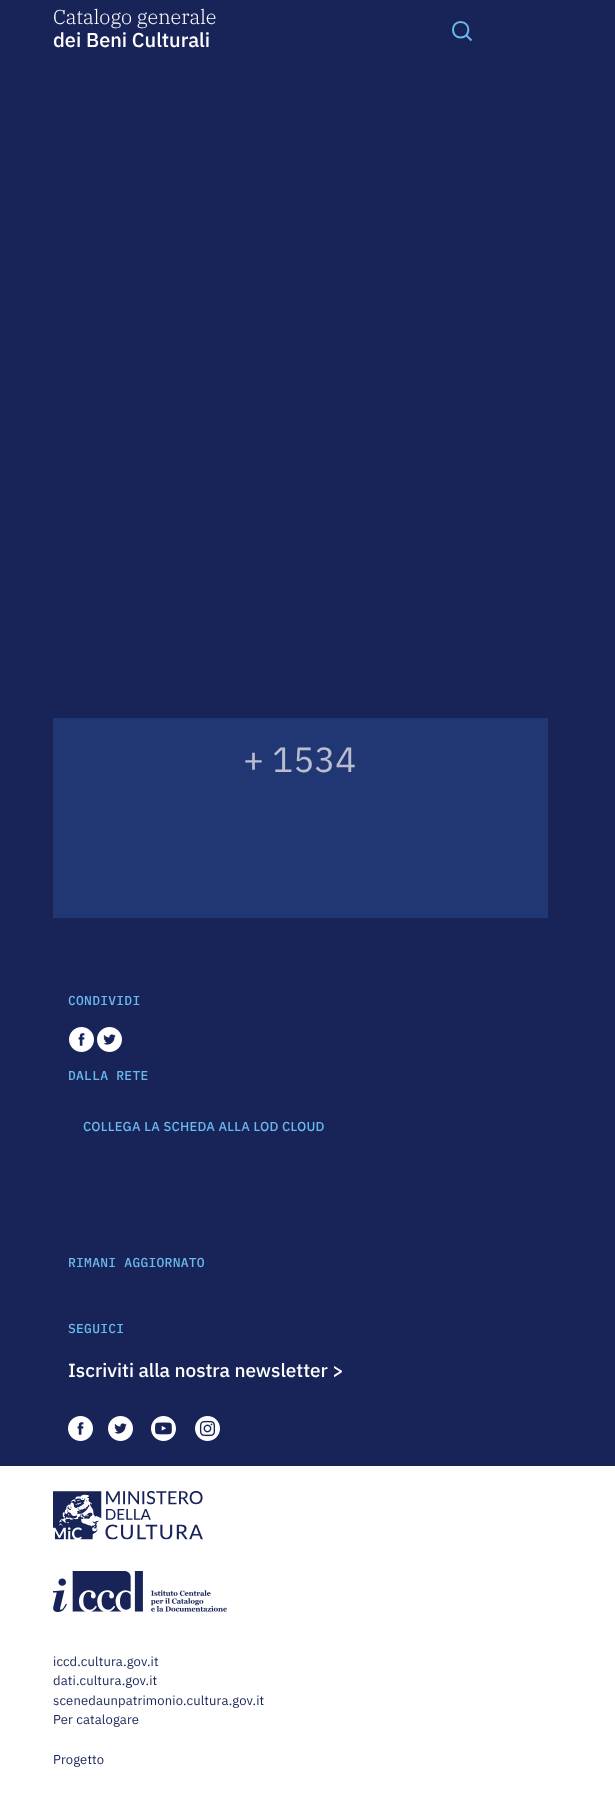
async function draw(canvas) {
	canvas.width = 615;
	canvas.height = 1795;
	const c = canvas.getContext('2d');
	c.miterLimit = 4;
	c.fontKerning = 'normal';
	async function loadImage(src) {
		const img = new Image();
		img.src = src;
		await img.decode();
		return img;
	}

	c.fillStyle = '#fff';
	c.fillRect(0, 0, 615, 1795);
	c.fillStyle = '#182358';
	c.fillRect(0, 0, 615, 1466);
	c.font = '300 20px IBM Plex Serif';
	c.fillStyle = '#fff';
	c.fillText('Catalogo generale', 53, 24);
	c.font = '500 20px IBM Plex Sans';
	c.fillText('dei Beni Culturali', 53, 47);
	c.beginPath();
	c.moveTo(460.5, 37.5);
	c.bezierCurveTo(471, 37.5, 471, 22, 460.5, 22);
	c.bezierCurveTo(450.5, 22, 450.5, 37.5, 460.5, 37.5);
	c.closePath();
	c.moveTo(466.5, 35.5);
	c.lineTo(471.5, 40.5);
	c.strokeStyle = '#69b9ec';
	c.lineWidth = 2;
	c.stroke();
	c.fillStyle = '#203774';
	c.fillRect(53, 718, 495, 200);
	c.font = '35px IBM Plex Sans';
	c.fillStyle = '#babdcd';
	c.fillText('+ 1534', 243, 772);
	c.letterSpacing = '0.25px';
	c.font = '500 13px IBM Plex Mono';
	c.fillStyle = '#69b9ec';
	c.fillText('CONDIVIDI', 68, 1005);
	c.drawImage(await loadImage('img1.png'), 69, 1027, 25, 25);
	c.drawImage(await loadImage('img2.png'), 97, 1027, 25, 25);
	c.fillText('DALLA RETE', 68, 1080);
	c.font = '500 13px IBM Plex Sans';
	c.fillText('COLLEGA LA SCHEDA ALLA LOD CLOUD', 83, 1131);
	c.font = '500 13px IBM Plex Mono';
	c.fillText('RIMANI AGGIORNATO', 68, 1267);
	c.fillText('SEGUICI', 68, 1333);
	c.letterSpacing = '0px';
	c.font = '500 19px IBM Plex Sans';
	c.fillStyle = '#fff';
	c.fillText('Iscriviti alla nostra newsletter >', 68, 1377);
	c.drawImage(await loadImage('img1.png'), 68, 1416, 25, 25);
	c.drawImage(await loadImage('img2.png'), 108, 1416, 25, 25);
	c.drawImage(await loadImage('img3.png'), 151, 1416, 25, 25);
	c.drawImage(await loadImage('img4.png'), 195, 1416, 25, 25);
	c.drawImage(await loadImage('img5.png'), 53, 1491, 150, 49);
	c.drawImage(await loadImage('img6.png'), 53, 1571, 174, 41);
	c.letterSpacing = '0.15px';
	c.font = '13px IBM Plex Sans';
	c.fillStyle = '#182358';
	for (const [text, x, y] of [
		['iccd.cultura.gov.it', 53, 1666],
		['dati.cultura.gov.it', 53, 1685],
		['scenedaunpatrimonio.cultura.gov.it', 53, 1705],
		['Per catalogare', 53, 1724],
		['Progetto', 53, 1764],
	]) {
		c.fillText(text, x, y);
	}
}

draw(document.querySelector('canvas'));
